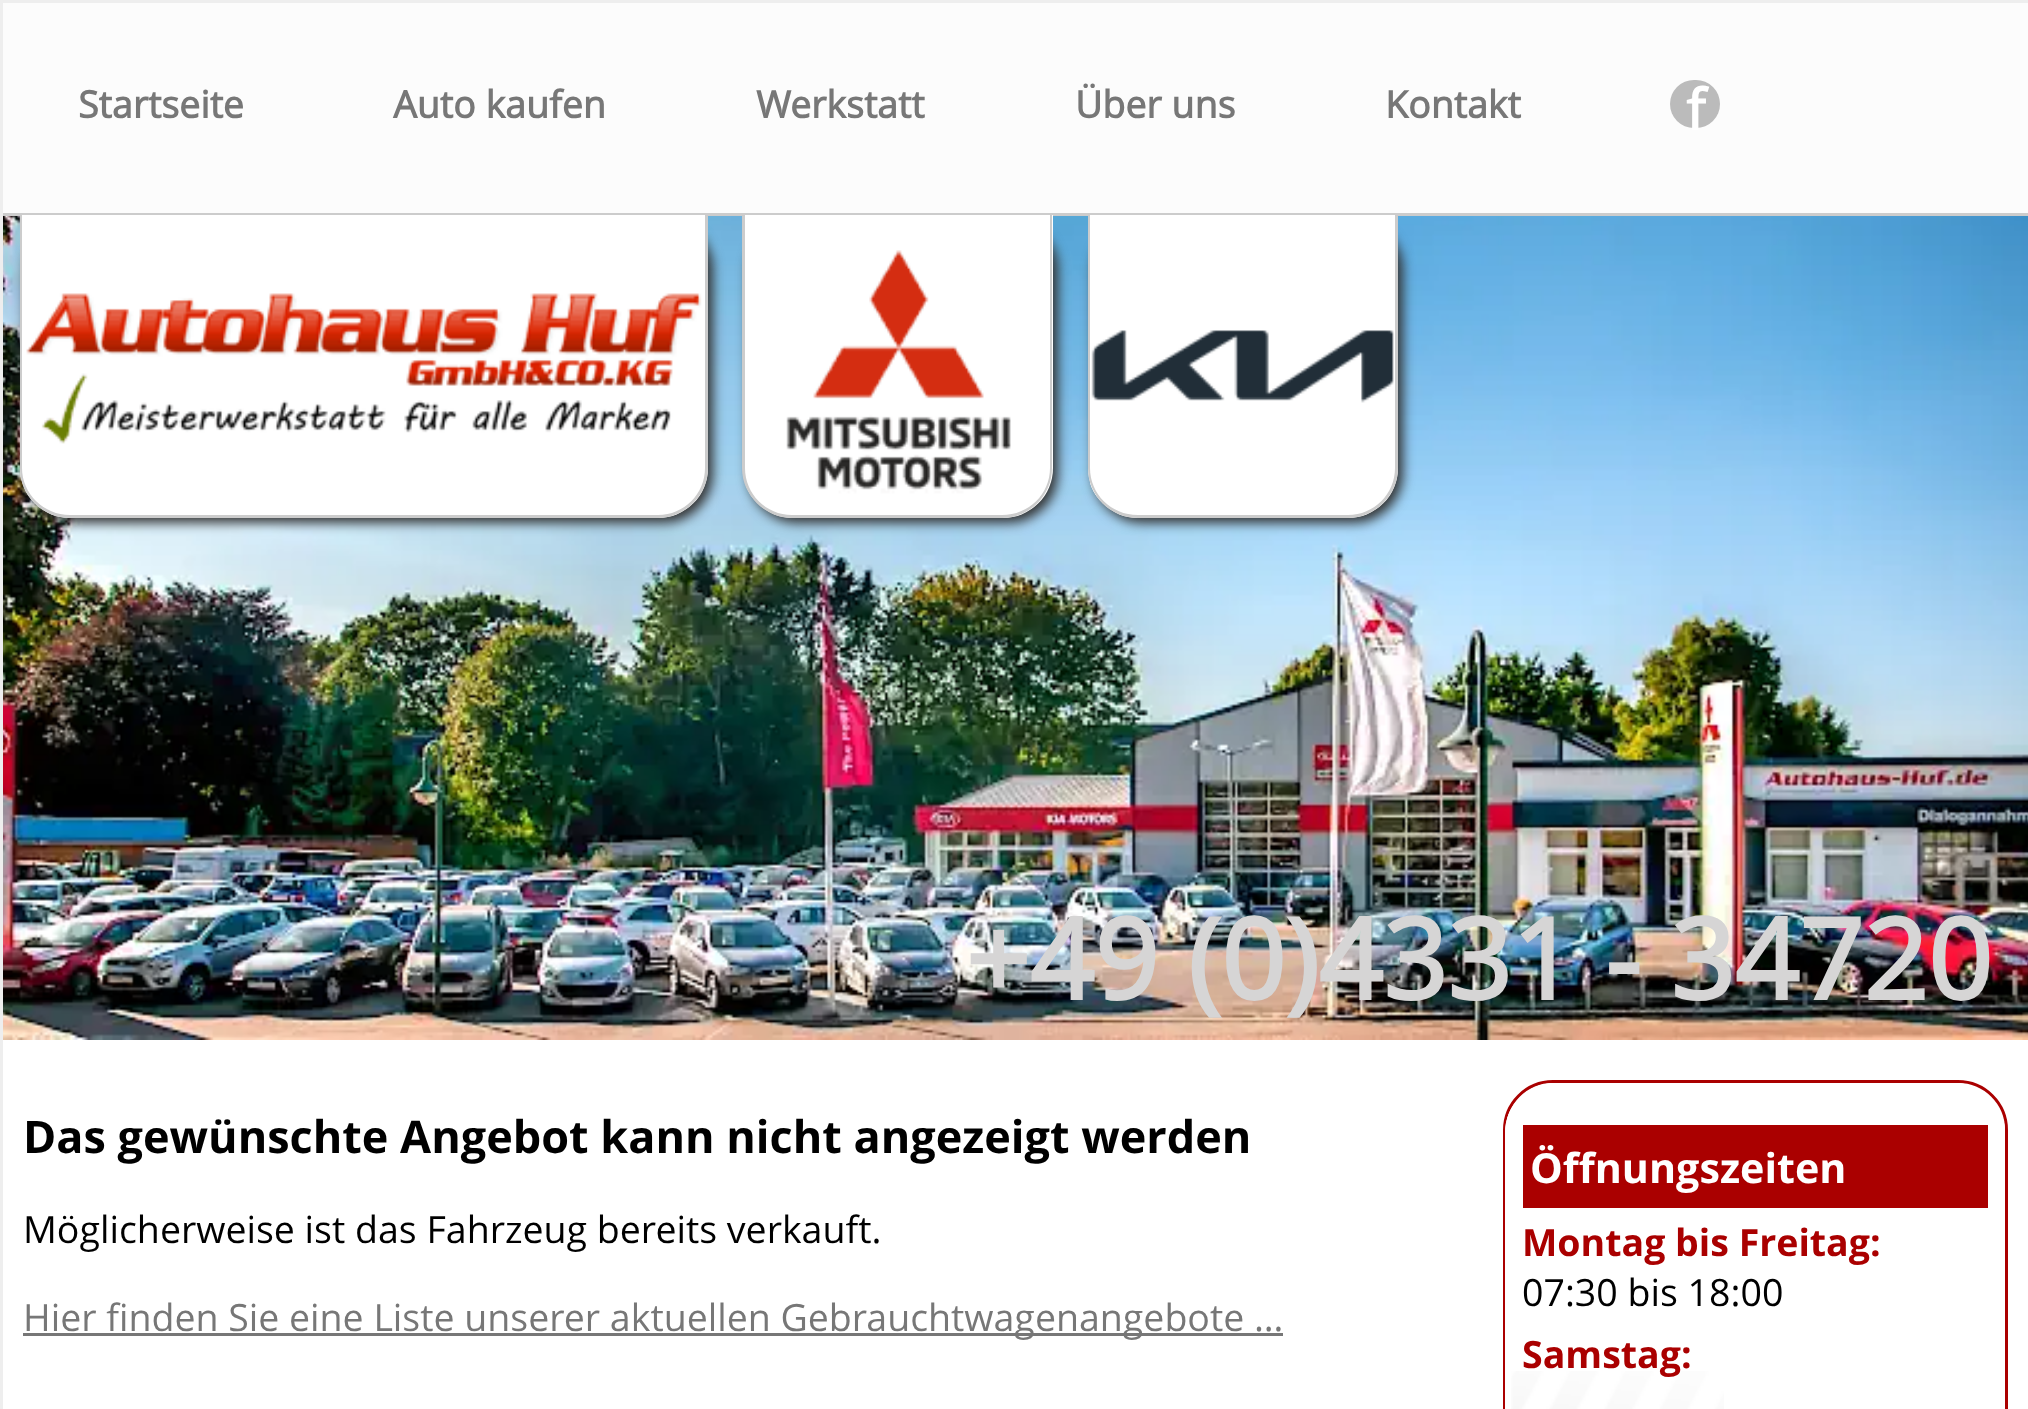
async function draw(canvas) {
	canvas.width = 2028;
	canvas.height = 1409;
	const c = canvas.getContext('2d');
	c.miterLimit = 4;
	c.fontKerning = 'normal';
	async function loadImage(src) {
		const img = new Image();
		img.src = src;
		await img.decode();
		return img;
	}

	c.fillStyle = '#fff';
	c.fillRect(0, 0, 2028, 1409);
	c.drawImage(await loadImage('img4.png'), 3, 216, 2025, 824);
	c.strokeStyle = '#eee';
	c.lineWidth = 3;
	c.strokeRect(1.5, 1.5, 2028, 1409);
	c.fillStyle = '#fcfcfc';
	c.fillRect(3, 3, 2025, 210);
	c.font = 'bold 37.5px "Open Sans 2"';
	c.fillStyle = '#777';
	for (const [text, x, y] of [
		['Startseite', 78, 118],
		['Auto kaufen', 393, 118],
		['Werkstatt', 756, 118],
		['Über uns', 1075, 118],
		['Kontakt', 1385, 118],
	]) {
		c.fillText(text, x, y);
	}
	c.fillStyle = '#bbb';
	c.beginPath();
	c.roundRect(1670, 80, 50, 48, 24);
	c.fill();
	c.font = 'bold 56px "Open Sans 2"';
	c.fillStyle = '#fff';
	c.fillText('f', 1686, 130);
	c.fillStyle = '#ccc';
	c.fillRect(3, 213, 2025, 3);
	c.save();
	c.beginPath();
	c.rect(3, 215, 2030, 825);
	c.clip();
	c.fillStyle = '#333';
	c.filter = 'blur(6px)';
	c.beginPath();
	c.roundRect(25, 220, 688, 303, 50);
	c.fill();
	c.filter = 'none';
	c.restore();
	c.fillStyle = '#fff';
	c.beginPath();
	c.roundRect(20, 215, 688, 303, [0, 0, 50, 50]);
	c.fill();
	c.drawImage(await loadImage('img1.png'), 26, 293, 676, 151);
	c.fillStyle = '#ccc';
	c.beginPath();
	c.moveTo(20, 215);
	c.lineTo(708, 215);
	c.lineTo(708, 468);
	c.bezierCurveTo(708, 495, 685, 518, 658, 518);
	c.lineTo(70, 518);
	c.bezierCurveTo(42, 518, 20, 495, 20, 468);
	c.closePath();
	c.moveTo(22, 215);
	c.lineTo(705, 215);
	c.lineTo(705, 468);
	c.bezierCurveTo(705, 494, 684, 515, 658, 515);
	c.lineTo(70, 515);
	c.bezierCurveTo(44, 515, 22, 494, 22, 468);
	c.closePath();
	c.fill('evenodd');
	c.save();
	c.beginPath();
	c.rect(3, 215, 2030, 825);
	c.clip();
	c.fillStyle = '#333';
	c.filter = 'blur(6px)';
	c.beginPath();
	c.roundRect(748, 220, 310, 303, 50);
	c.fill();
	c.filter = 'none';
	c.restore();
	c.fillStyle = '#fff';
	c.beginPath();
	c.roundRect(743, 215, 310, 303, [0, 0, 50, 50]);
	c.fill();
	c.drawImage(await loadImage('img2.png'), 745, 250, 305, 248);
	c.fillStyle = '#ccc';
	c.beginPath();
	c.moveTo(742, 215);
	c.lineTo(1052, 215);
	c.lineTo(1052, 468);
	c.bezierCurveTo(1052, 495, 1030, 518, 1002, 518);
	c.lineTo(792, 518);
	c.bezierCurveTo(765, 518, 742, 495, 742, 468);
	c.closePath();
	c.moveTo(745, 215);
	c.lineTo(1050, 215);
	c.lineTo(1050, 468);
	c.bezierCurveTo(1050, 494, 1029, 515, 1002, 515);
	c.lineTo(792, 515);
	c.bezierCurveTo(766, 515, 745, 494, 745, 468);
	c.closePath();
	c.fill('evenodd');
	c.save();
	c.beginPath();
	c.rect(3, 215, 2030, 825);
	c.clip();
	c.fillStyle = '#333';
	c.filter = 'blur(6px)';
	c.beginPath();
	c.roundRect(1093, 220, 310, 303, 50);
	c.fill();
	c.filter = 'none';
	c.restore();
	c.fillStyle = '#fff';
	c.beginPath();
	c.roundRect(1088, 215, 310, 303, [0, 0, 50, 50]);
	c.fill();
	c.drawImage(await loadImage('img3.png'), 1090, 330, 305, 168);
	c.fillStyle = '#ccc';
	c.beginPath();
	c.moveTo(1088, 215);
	c.lineTo(1398, 215);
	c.lineTo(1398, 468);
	c.bezierCurveTo(1398, 495, 1375, 518, 1348, 518);
	c.lineTo(1138, 518);
	c.bezierCurveTo(1110, 518, 1088, 495, 1088, 468);
	c.closePath();
	c.moveTo(1090, 215);
	c.lineTo(1395, 215);
	c.lineTo(1395, 468);
	c.bezierCurveTo(1395, 494, 1374, 515, 1348, 515);
	c.lineTo(1138, 515);
	c.bezierCurveTo(1111, 515, 1090, 494, 1090, 468);
	c.closePath();
	c.fill('evenodd');
	c.font = 'bold 112.5px "Open Sans 2"';
	c.fillStyle = '#d6d5d5';
	c.fillText('+49 (0)4331 - 34720', 965, 1000);
	c.font = 'bold 45px Open Sans';
	c.fillStyle = '#000';
	c.fillText('Das gewünschte Angebot kann nicht angezeigt werden', 23, 1153);
	c.font = '37.5px Open Sans';
	c.fillText('Möglicherweise ist das Fahrzeug bereits verkauft.', 23, 1243);
	c.fillStyle = '#777';
	c.fillRect(23, 1333, 1260, 3);
	c.fillText('Hier finden Sie eine Liste unserer aktuellen Gebrauchtwagenangebote …', 23, 1331);
	c.beginPath();
	c.roundRect(1504.5, 1081.5, 502, 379, 48.5);
	c.strokeStyle = '#a00';
	c.stroke();
	c.fillStyle = '#fff';
	c.beginPath();
	c.roundRect(1505, 1083, 500, 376, 50);
	c.fill();
	c.drawImage(await loadImage('img5.png'), 1511, 1371, 213, 38);
	c.beginPath();
	c.roundRect(1507.5, 1085.5, 495, 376, 47.5);
	c.strokeStyle = '#fff';
	c.lineWidth = 5;
	c.stroke();
	c.fillStyle = '#a00';
	c.fillRect(1523, 1125, 465, 83);
	c.font = 'bold 41.25px Open Sans';
	c.fillStyle = '#fff';
	c.fillText('Öffnungszeiten', 1530, 1183);
	c.font = 'bold 37.5px Open Sans';
	c.fillStyle = '#a00';
	c.fillText('Montag bis Freitag:', 1522, 1256);
	c.font = '37.5px Open Sans';
	c.fillStyle = '#000';
	c.fillText('07:30 bis 18:00', 1522, 1306);
	c.font = 'bold 37.5px Open Sans';
	c.fillStyle = '#a00';
	c.fillText('Samstag:', 1522, 1368);
}

draw(document.querySelector('canvas'));
